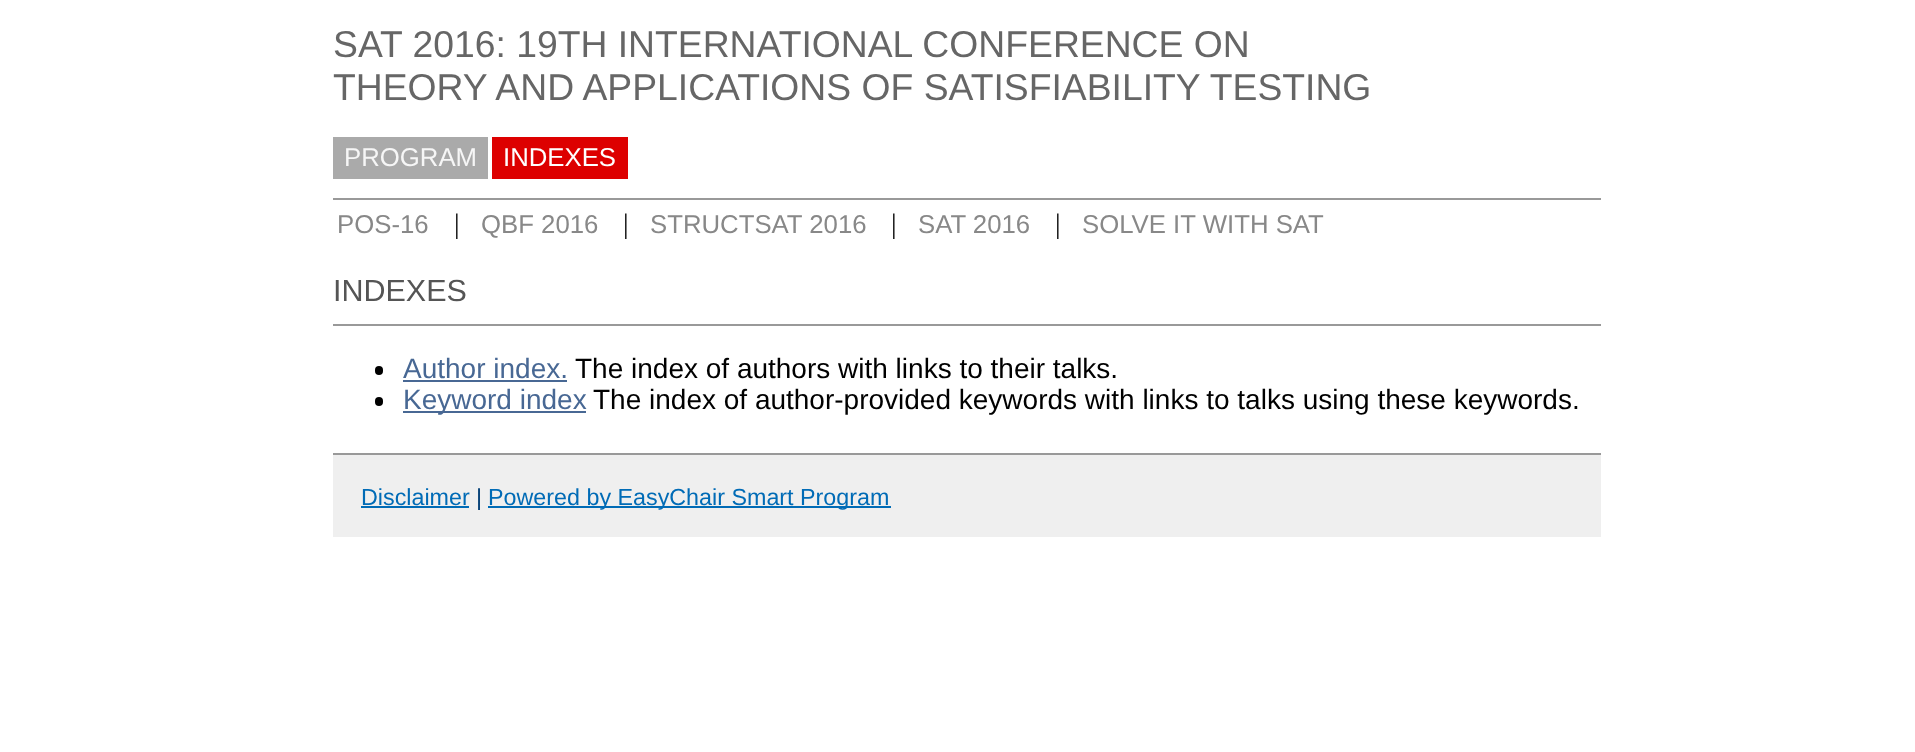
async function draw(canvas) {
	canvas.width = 1915;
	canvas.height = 752;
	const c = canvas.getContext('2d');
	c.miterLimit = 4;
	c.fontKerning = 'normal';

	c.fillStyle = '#fff';
	c.fillRect(0, 0, 1915, 752);
	c.font = '37.3px Liberation Sans';
	c.fillStyle = '#666';
	c.fillText('SAT 2016: 19TH INTERNATIONAL CONFERENCE ON', 333, 57);
	c.fillText('THEORY AND APPLICATIONS OF SATISFIABILITY TESTING', 333, 100);
	c.fillStyle = '#aaa';
	c.fillRect(333, 137, 155, 42);
	c.font = '25.75px Liberation Sans';
	c.fillStyle = '#f6f6f6';
	c.fillText('PROGRAM', 344, 166);
	c.fillStyle = '#d00';
	c.fillRect(492, 137, 136, 42);
	c.fillStyle = '#fff';
	c.fillText('INDEXES', 503, 166);
	c.fillStyle = '#999';
	c.fillRect(333, 198, 1268, 2);
	c.fillStyle = '#888';
	c.fillText('POS-16', 337, 233);
	c.font = '28px Liberation Serif';
	c.fillStyle = '#000';
	c.fillText('|', 454, 233);
	c.font = '25.75px Liberation Sans';
	c.fillStyle = '#888';
	c.fillText('QBF 2016', 481, 233);
	c.font = '28px Liberation Serif';
	c.fillStyle = '#000';
	c.fillText('|', 623, 233);
	c.font = '25.75px Liberation Sans';
	c.fillStyle = '#888';
	c.fillText('STRUCTSAT 2016', 650, 233);
	c.font = '28px Liberation Serif';
	c.fillStyle = '#000';
	c.fillText('|', 891, 233);
	c.font = '25.75px Liberation Sans';
	c.fillStyle = '#888';
	c.fillText('SAT 2016', 918, 233);
	c.font = '28px Liberation Serif';
	c.fillStyle = '#000';
	c.fillText('|', 1055, 233);
	c.font = '25.75px Liberation Sans';
	c.fillStyle = '#888';
	c.fillText('SOLVE IT WITH SAT', 1082, 233);
	c.fillStyle = '#999';
	c.fillRect(333, 324, 1268, 2);
	c.font = '30.5px Liberation Sans';
	c.fillStyle = '#555';
	c.fillText('INDEXES', 333, 301);
	c.fillStyle = '#000';
	c.beginPath();
	c.roundRect(375, 366, 8, 9, 4);
	c.fill();
	c.font = '28px Liberation Sans';
	c.fillStyle = '#486894';
	c.fillText('Author index.', 403, 378);
	c.fillRect(403, 380, 164, 2);
	c.fillStyle = '#000';
	c.fillText('The index of authors with links to their talks.', 575, 378);
	c.beginPath();
	c.roundRect(375, 397, 8, 9, 4);
	c.fill();
	c.fillStyle = '#486894';
	c.fillRect(403, 411, 183, 2);
	c.fillText('Keyword index', 403, 409);
	c.fillStyle = '#000';
	c.fillText('The index of author-provided keywords with links to talks using these keywords.', 593, 409);
	c.fillStyle = '#efefef';
	c.fillRect(333, 455, 1268, 82);
	c.fillStyle = '#999';
	c.fillRect(333, 453, 1268, 2);
	c.font = '23.3px Liberation Sans';
	c.fillStyle = '#006bb6';
	c.fillText('Disclaimer', 361, 505);
	c.fillRect(361, 506, 108, 2);
	c.fillStyle = '#043f76';
	c.fillText('|', 476, 505);
	c.fillStyle = '#006bb6';
	c.fillRect(488, 506, 403, 2);
	c.fillText('Powered by EasyChair Smart Program', 488, 505);
}

draw(document.querySelector('canvas'));
